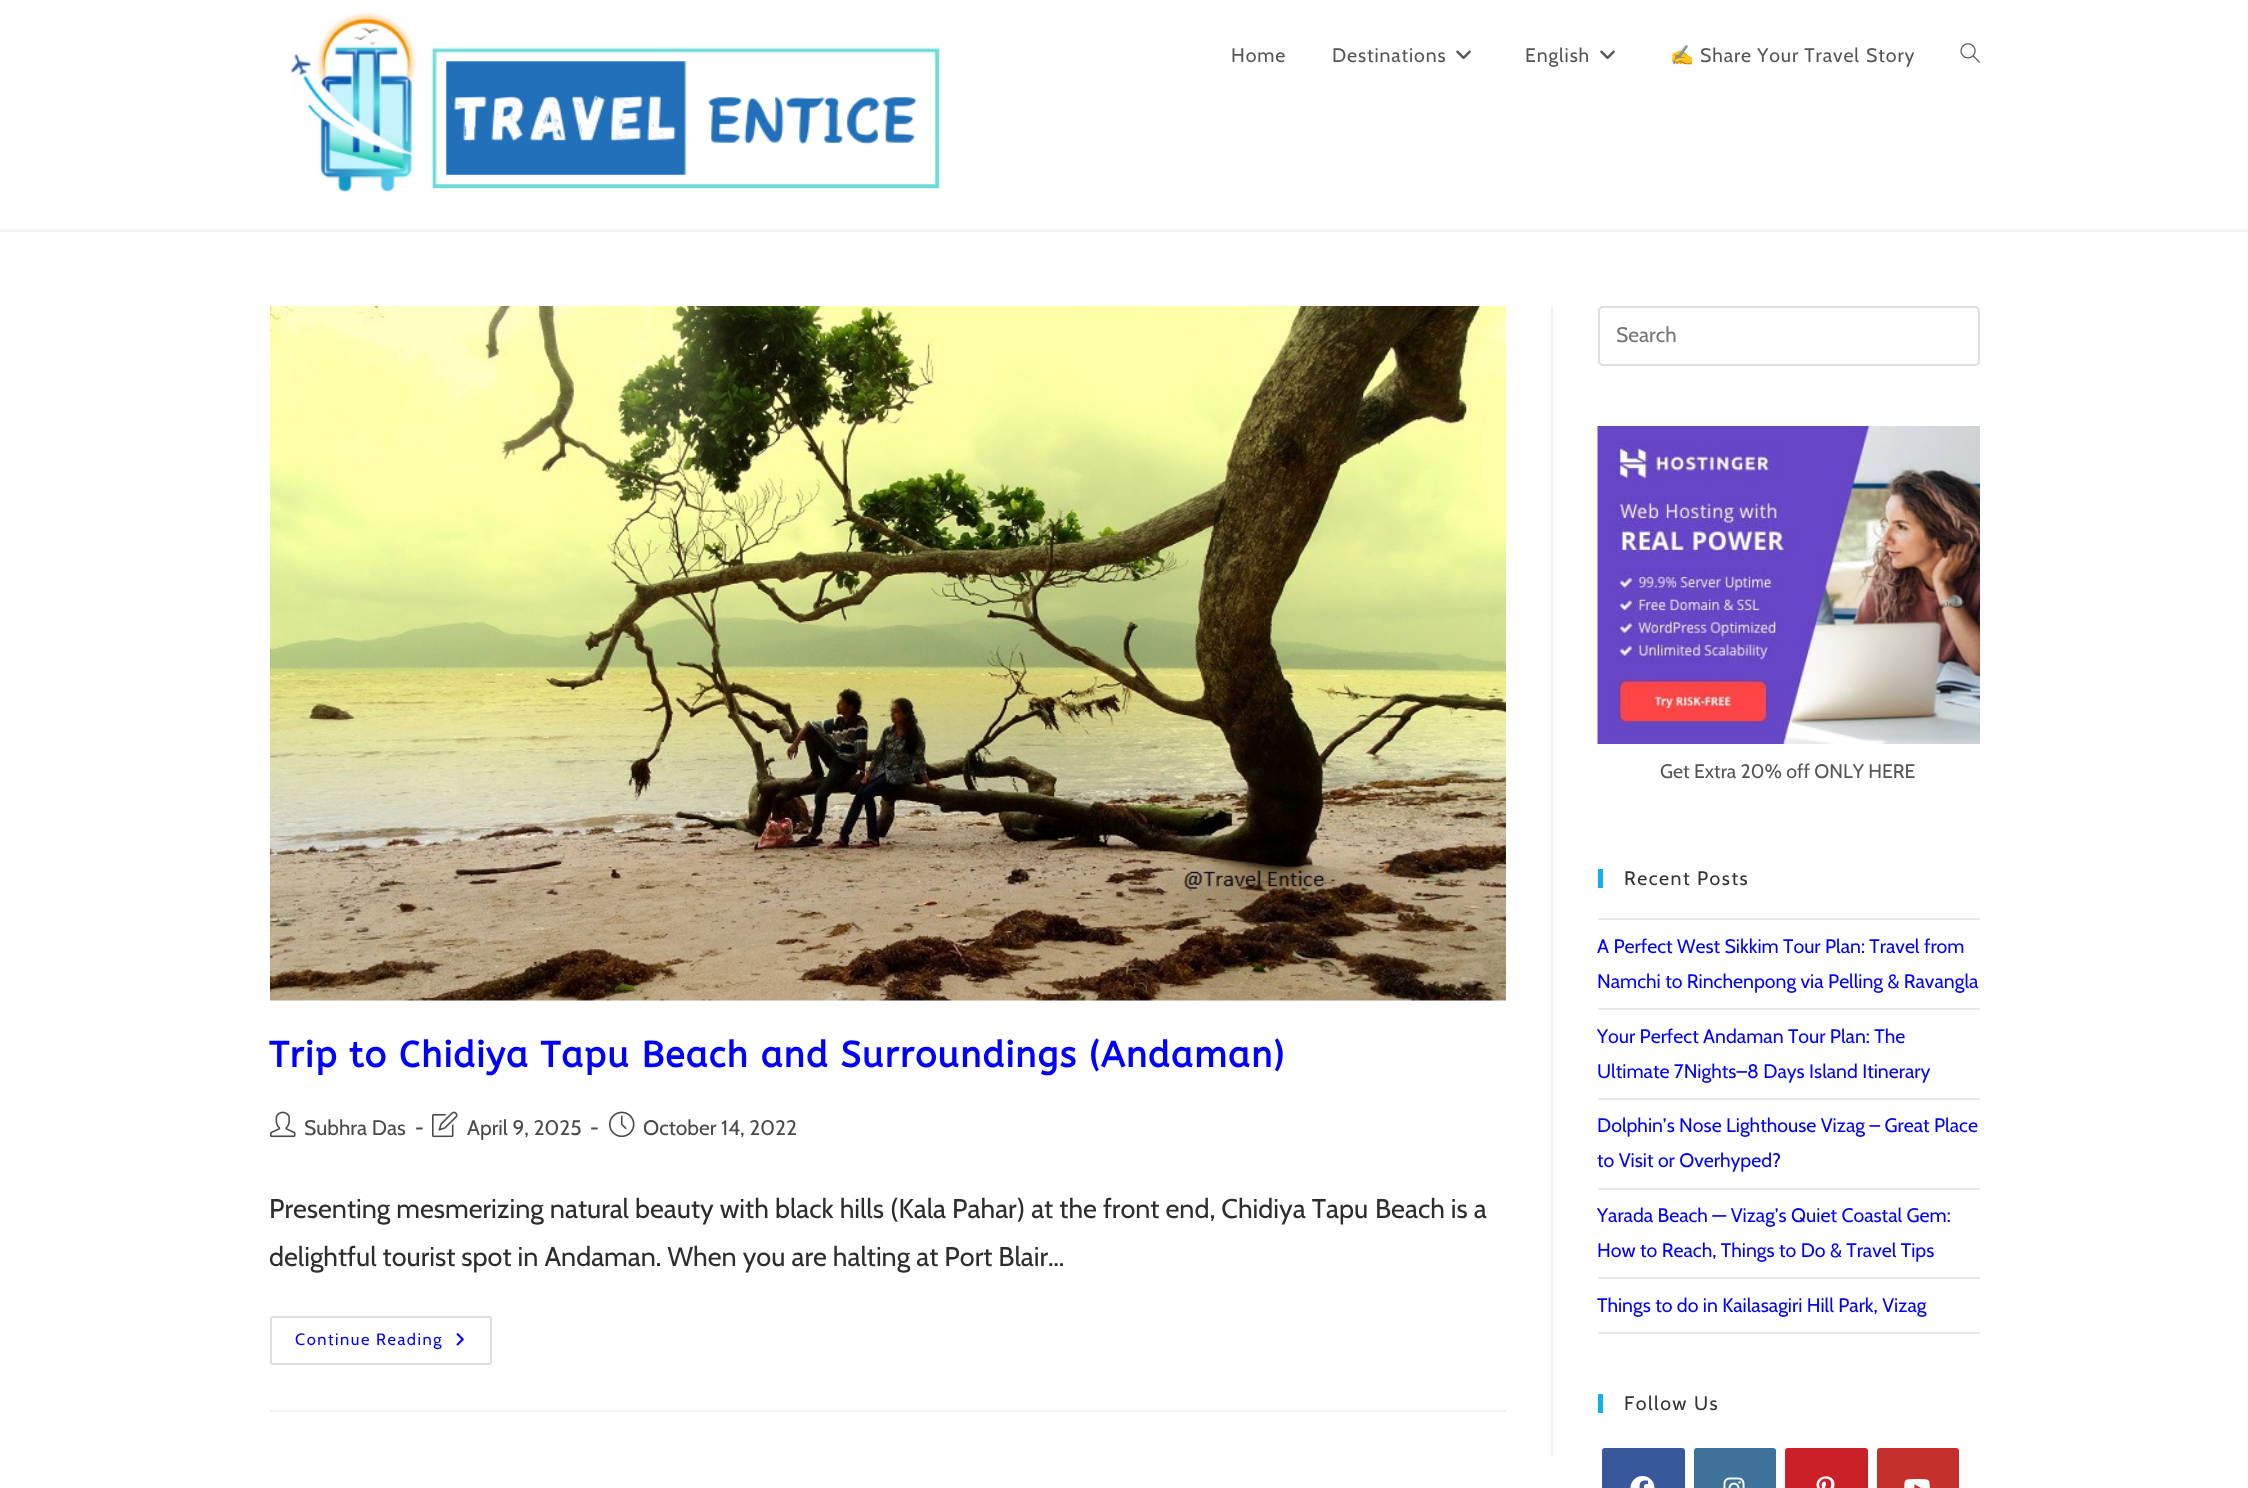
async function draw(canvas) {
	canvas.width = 2248;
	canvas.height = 1488;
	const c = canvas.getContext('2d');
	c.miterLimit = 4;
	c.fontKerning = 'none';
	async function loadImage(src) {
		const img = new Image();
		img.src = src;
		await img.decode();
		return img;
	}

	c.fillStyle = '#fff';
	c.fillRect(0, 0, 2248, 1488);
	c.fillStyle = '#f1f1f1';
	c.fillRect(0, 230, 2248, 2);
	c.drawImage(await loadImage('img1.png'), 290, 12, 650, 181);
	c.letterSpacing = '0.9px';
	c.font = '19.5px Cabin';
	c.fillStyle = '#555';
	c.fillText('Home', 1231, 62);
	c.fillText('Destinations', 1332, 62);
	c.drawImage(await loadImage('img2.png'), 1456, 50, 15, 9);
	c.fillText('English', 1525, 62);
	c.drawImage(await loadImage('img2.png'), 1600, 50, 15, 9);
	c.font = '19.5px Noto Color Emoji';
	c.fillText('✍', 1670, 62);
	c.font = '19.5px Cabin';
	c.fillText('Share Your Travel', 1700, 62);
	c.fillText('Story', 1866, 62);
	c.drawImage(await loadImage('img3.png'), 1960, 43, 20, 20);
	c.fillStyle = '#f1f1f1';
	c.fillRect(1551, 306, 2, 1151);
	c.fillRect(270, 1410, 1236, 2);
	c.drawImage(await loadImage('img4.png'), 270, 306, 1236, 695);
	c.font = 'bold 36px ABeeZee';
	c.fillStyle = '#00f';
	c.fillText('Trip to Chidiya Tapu Beach and Surroundings', 269, 1067);
	c.fillText('(Andaman)', 1089, 1067);
	c.drawImage(await loadImage('img5.png'), 270, 1111, 26, 27);
	c.letterSpacing = '0px';
	c.font = '21px Cabin';
	c.fillStyle = '#4a4a4a';
	c.fillText('Subhra Das', 304, 1135);
	c.font = 'bold 21px Cabin';
	c.fillText('-', 415, 1135);
	c.drawImage(await loadImage('img6.png'), 432, 1111, 26, 27);
	c.font = '21px Cabin';
	c.fillText('April 9, 2025', 467, 1135);
	c.font = 'bold 21px Cabin';
	c.fillText('-', 590, 1135);
	c.drawImage(await loadImage('img7.png'), 609, 1111, 26, 27);
	c.font = '21px Cabin';
	c.fillText('October 14, 2022', 643, 1135);
	c.font = '27px Cabin';
	c.fillStyle = '#2d2d2d';
	c.fillText('Presenting mesmerizing natural beauty with black hills (Kala Pahar) at the front end, Chidiya Tapu', 269, 1218);
	c.fillText('Beach is a', 1375, 1218);
	c.fillText('delightful tourist spot in Andaman. When you are halting at Port Blair…', 269, 1266);
	c.beginPath();
	c.roundRect(271, 1317, 220, 47, 2);
	c.strokeStyle = '#ddd';
	c.lineWidth = 2;
	c.stroke();
	c.letterSpacing = '1.5px';
	c.font = '16.5px Cabin';
	c.fillStyle = '#00f';
	c.fillText('Continue Reading', 295, 1345);
	c.drawImage(await loadImage('img8.png'), 456, 1333, 8, 13);
	c.beginPath();
	c.roundRect(1599, 307, 380, 58, 4);
	c.stroke();
	c.letterSpacing = '0px';
	c.font = '21px Cabin';
	c.fillStyle = '#757575';
	c.fillText('Search', 1616, 342);
	c.drawImage(await loadImage('img9.png'), 1597, 426, 383, 318);
	c.font = '19.5px Cabin';
	c.fillStyle = '#555';
	c.fillText('Get Extra 20% off ONLY HERE', 1660, 778);
	c.fillStyle = '#13aff0';
	c.fillRect(1598, 869, 5, 19);
	c.letterSpacing = '1.5px';
	c.fillStyle = '#333';
	c.fillText('Recent Posts', 1624, 885);
	c.fillStyle = '#e9e9e9';
	c.fillRect(1598, 918, 382, 2);
	c.fillRect(1598, 1008, 382, 2);
	c.letterSpacing = '0px';
	c.fillStyle = '#00f';
	c.fillText('A Perfect West Sikkim Tour Plan: Travel', 1597, 953);
	c.fillText('from', 1924, 953);
	c.fillText('Namchi to Rinchenpong via Pelling & Ravangla', 1597, 988);
	c.fillStyle = '#e9e9e9';
	c.fillRect(1598, 1098, 382, 2);
	c.fillStyle = '#00f';
	c.fillText('Your Perfect Andaman Tour Plan: The', 1597, 1043);
	c.fillText('Ultimate 7Nights–8 Days Island Itinerary', 1597, 1078);
	c.fillStyle = '#e9e9e9';
	c.fillRect(1598, 1188, 382, 2);
	c.fillStyle = '#00f';
	c.fillText('Dolphin’s Nose Lighthouse Vizag – Great Place', 1597, 1132);
	c.fillText('to Visit or Overhyped?', 1597, 1167);
	c.fillStyle = '#e9e9e9';
	c.fillRect(1598, 1277, 382, 2);
	c.fillStyle = '#00f';
	c.fillText('Yarada Beach — Vizag’s Quiet Coastal Gem:', 1597, 1222);
	c.fillText('How to Reach, Things to Do & Travel Tips', 1597, 1257);
	c.fillStyle = '#e9e9e9';
	c.fillRect(1598, 1332, 382, 2);
	c.fillStyle = '#00f';
	c.fillText('Things to do in Kailasagiri Hill Park, Vizag', 1597, 1312);
	c.fillStyle = '#13aff0';
	c.fillRect(1598, 1394, 5, 19);
	c.letterSpacing = '1.5px';
	c.fillStyle = '#333';
	c.fillText('Follow Us', 1624, 1410);
	c.fillStyle = '#37589b';
	c.beginPath();
	c.roundRect(1602, 1448, 83, 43, 3);
	c.fill();
	c.drawImage(await loadImage('img10.png'), 1630, 1476, 25, 12);
	c.fillStyle = '#3f729b';
	c.beginPath();
	c.roundRect(1694, 1448, 82, 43, 3);
	c.fill();
	c.drawImage(await loadImage('img11.png'), 1723, 1477, 22, 11);
	c.fillStyle = '#cb2027';
	c.beginPath();
	c.roundRect(1785, 1448, 83, 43, 3);
	c.fill();
	c.drawImage(await loadImage('img12.png'), 1816, 1476, 19, 12);
	c.fillStyle = '#c4302b';
	c.beginPath();
	c.roundRect(1877, 1448, 82, 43, 3);
	c.fill();
	c.drawImage(await loadImage('img13.png'), 1904, 1479, 26, 9);
}

draw(document.querySelector('canvas'));
